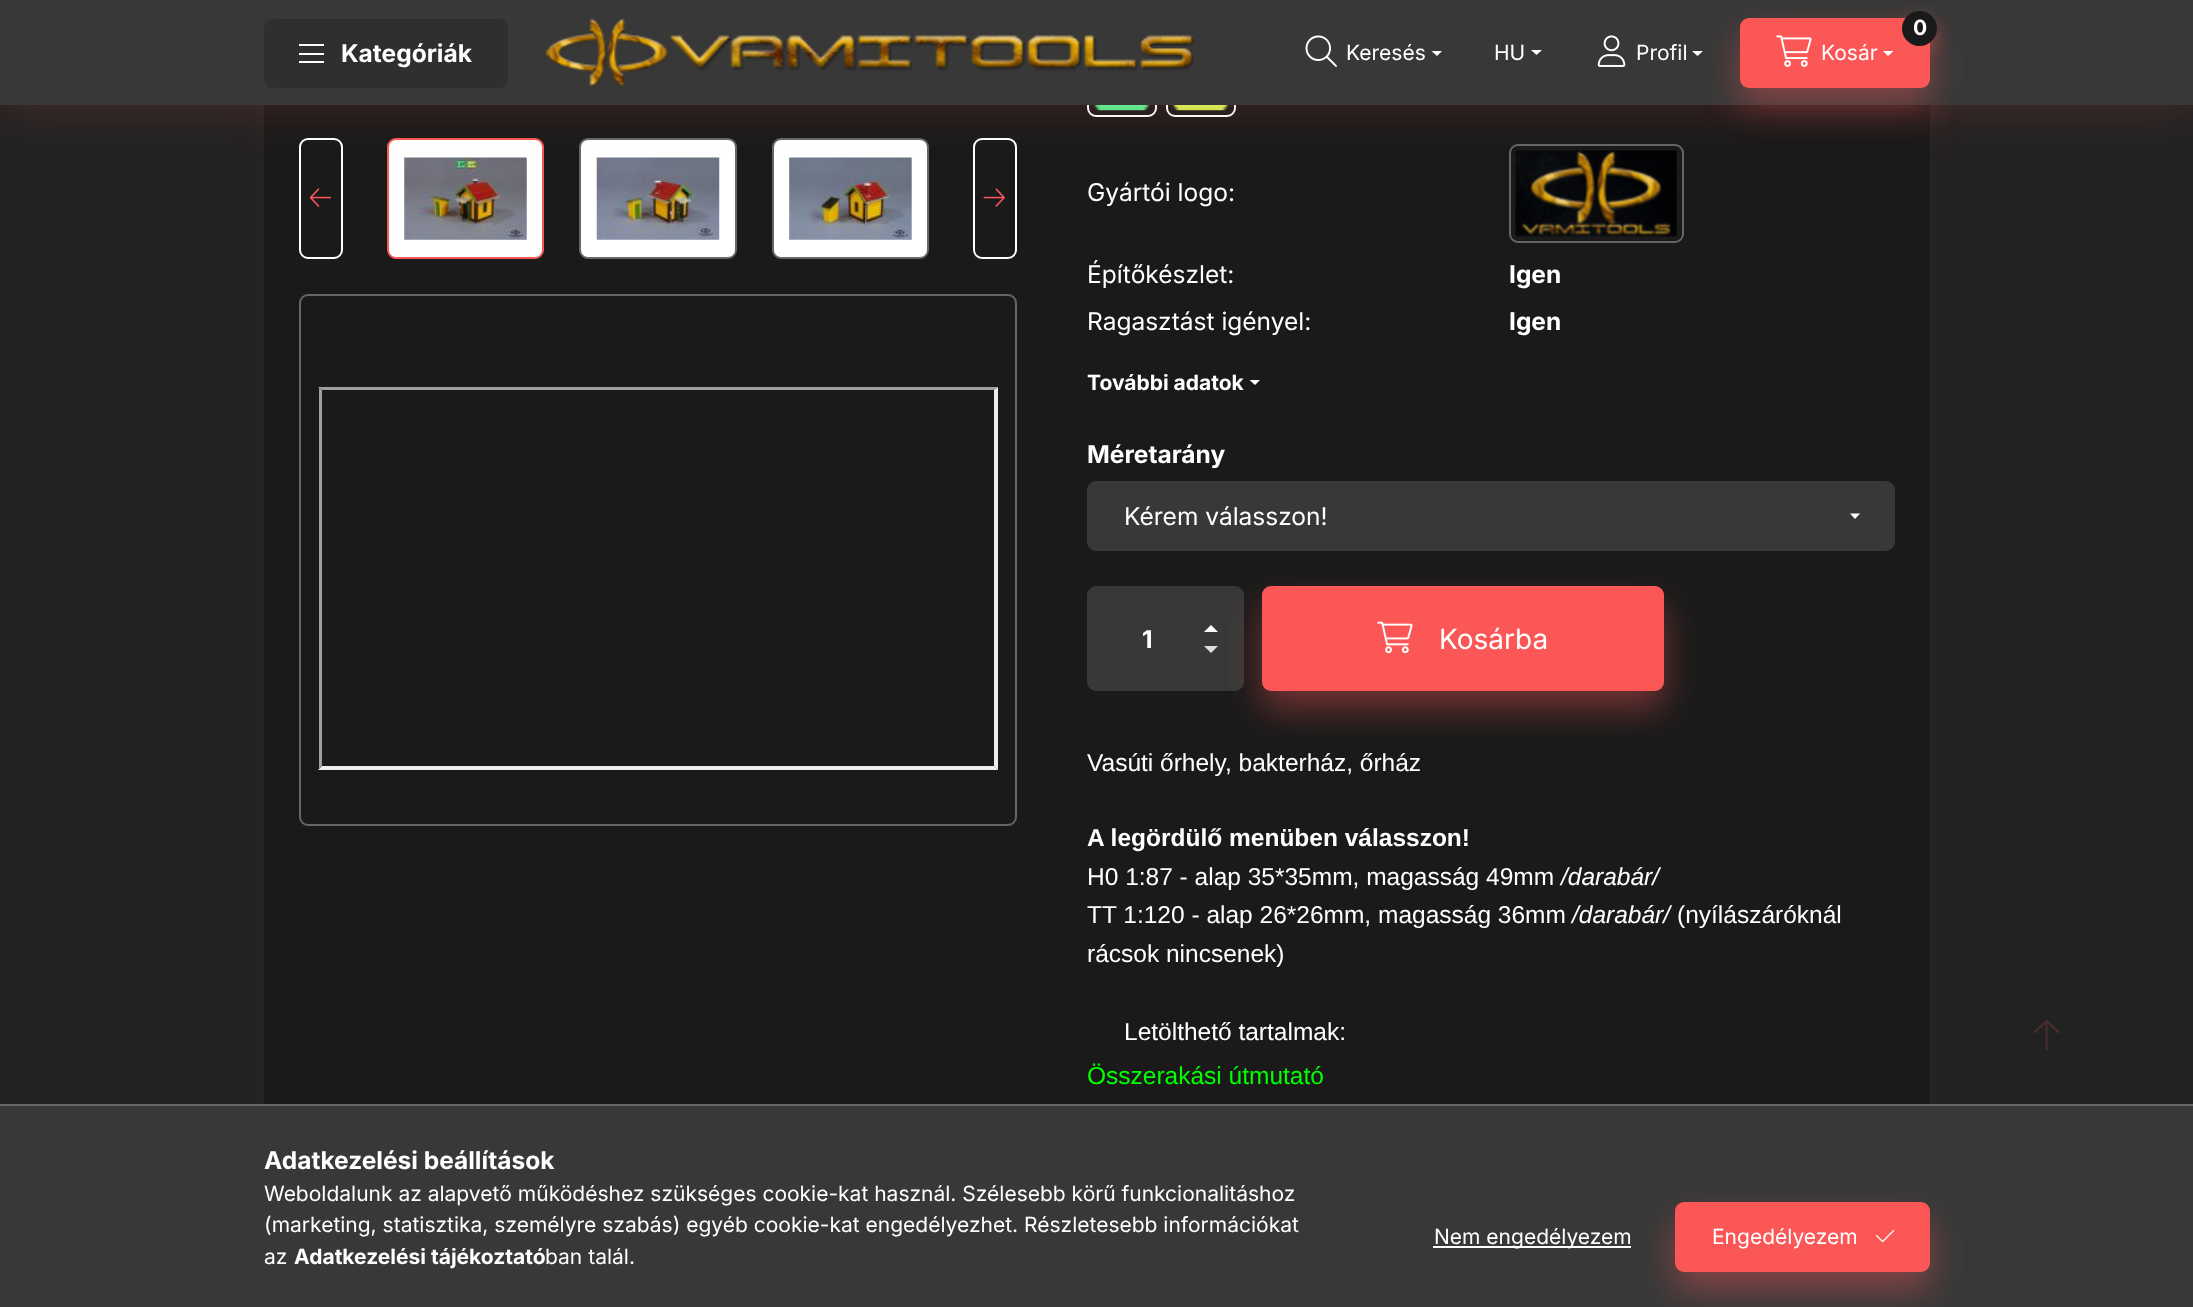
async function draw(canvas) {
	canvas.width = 2193;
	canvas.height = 1307;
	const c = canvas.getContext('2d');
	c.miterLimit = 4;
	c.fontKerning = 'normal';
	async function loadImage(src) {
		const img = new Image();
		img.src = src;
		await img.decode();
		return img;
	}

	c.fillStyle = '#222';
	c.fillRect(0, 0, 2193, 1307);
	c.fillStyle = '#fb57570d';
	c.filter = 'blur(17.5px)';
	c.beginPath();
	c.roundRect(264, -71, 1666, 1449, 18);
	c.fill();
	c.filter = 'none';
	c.fillStyle = '#1a1a1a';
	c.fillRect(264, 105, 1666, 999);
	c.beginPath();
	c.roundRect(300, 139, 42, 119, 8);
	c.strokeStyle = '#fff';
	c.lineWidth = 2;
	c.stroke();
	c.fillStyle = '#fff';
	c.beginPath();
	c.roundRect(388, 139, 155, 119, 8);
	c.fill();
	c.strokeStyle = '#fb5757';
	c.stroke();
	c.drawImage(await loadImage('img6.png'), 404, 157, 123, 83);
	c.beginPath();
	c.roundRect(580, 139, 156, 119, 8);
	c.fill();
	c.strokeStyle = '#666';
	c.stroke();
	c.drawImage(await loadImage('img7.png'), 596, 157, 124, 83);
	c.beginPath();
	c.roundRect(773, 139, 155, 119, 8);
	c.fill();
	c.stroke();
	c.drawImage(await loadImage('img8.png'), 789, 157, 123, 83);
	c.beginPath();
	c.roundRect(974, 139, 42, 119, 8);
	c.strokeStyle = '#fff';
	c.stroke();
	c.beginPath();
	c.roundRect(1088, 48, 68, 68, 8);
	c.stroke();
	c.drawImage(await loadImage('img10.png'), 1093, 105, 57, 6);
	c.beginPath();
	c.roundRect(1167, 48, 68, 68, 8);
	c.stroke();
	c.drawImage(await loadImage('img11.png'), 1172, 105, 57, 6);
	c.beginPath();
	c.roundRect(1510, 145, 173, 97, 8);
	c.strokeStyle = '#666';
	c.stroke();
	c.drawImage(await loadImage('img12.png'), 1515, 150, 162, 87);
	c.fillStyle = '#fb575733';
	c.filter = 'blur(26px)';
	c.beginPath();
	c.rect(0, 0, 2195, 105);
	c.fill();
	c.filter = 'none';
	c.fillStyle = '#383838';
	c.fillRect(0, 0, 2193, 105);
	c.fillStyle = '#2f2f2f';
	c.beginPath();
	c.roundRect(264, 19, 244, 69, 9);
	c.fill();
	for (const [x, y, w, h, color] of [
		[299, 44, 25, 2, '#fff'],
		[299, 53, 25, 2, '#fff'],
		[299, 61, 25, 2, '#fff'],
	]) {
		c.fillStyle = color;
		c.fillRect(x, y, w, h);
	}
	c.font = 'bold 24.5px Inter';
	c.fillText('Kategóriák', 341, 62);
	c.drawImage(await loadImage('img1.png'), 545, 18, 649, 69);
	c.drawImage(await loadImage('img2.png'), 1305, 35, 32, 32);
	c.font = '21px Inter';
	c.fillText('Keresés', 1346, 60);
	c.beginPath();
	c.moveTo(1431.5, 51);
	c.lineTo(1442, 51);
	c.lineTo(1437, 56);
	c.closePath();
	c.fill();
	c.fillText('HU', 1494, 60);
	c.beginPath();
	c.moveTo(1531, 50);
	c.lineTo(1542, 50);
	c.lineTo(1536.5, 55);
	c.closePath();
	c.fill();
	c.drawImage(await loadImage('img3.png'), 1597, 35, 29, 32);
	c.fillStyle = '#fb575766';
	c.filter = 'blur(17.5px)';
	c.beginPath();
	c.roundRect(1740, 35, 190, 70, 9);
	c.fill();
	c.filter = 'none';
	c.fillStyle = '#fff';
	c.fillText('Profil', 1636, 60);
	c.beginPath();
	c.moveTo(1692, 51);
	c.lineTo(1703, 51);
	c.lineTo(1697.5, 56);
	c.closePath();
	c.fill();
	c.fillStyle = '#fb5757';
	c.beginPath();
	c.roundRect(1740, 18, 190, 70, 9);
	c.fill();
	c.fillStyle = '#fb575766';
	c.filter = 'blur(9px)';
	c.beginPath();
	c.roundRect(1902, 19, 35, 35, 17.5);
	c.fill();
	c.filter = 'none';
	c.fillStyle = '#1a1a1a';
	c.beginPath();
	c.arc(1919.5, 28.5, 17.5, 0, 2 * Math.PI);
	c.fill();
	c.font = 'bold 21px Inter';
	c.fillStyle = '#fff';
	c.fillText('0', 1913, 35);
	c.drawImage(await loadImage('img4.png'), 1776, 35, 36, 32);
	c.font = '21px Inter';
	c.fillText('Kosár', 1821, 60);
	c.beginPath();
	c.moveTo(1883, 51);
	c.lineTo(1893.5, 51);
	c.lineTo(1888, 56);
	c.closePath();
	c.fill();
	c.drawImage(await loadImage('img5.png'), 309, 188, 23, 19);
	c.drawImage(await loadImage('img9.png'), 983, 188, 22, 19);
	c.beginPath();
	c.roundRect(300, 295, 716, 530, 8);
	c.stroke();
	c.fillStyle = '#9f9f9f';
	c.beginPath();
	c.moveTo(318, 387);
	c.lineTo(998, 387);
	c.lineTo(994, 390);
	c.lineTo(322, 390);
	c.closePath();
	c.fill();
	c.fillStyle = '#eee';
	c.beginPath();
	c.moveTo(998, 387);
	c.lineTo(998, 770);
	c.lineTo(994, 766);
	c.lineTo(994, 390);
	c.closePath();
	c.fill();
	c.beginPath();
	c.moveTo(998, 770);
	c.lineTo(318, 770);
	c.lineTo(322, 766);
	c.lineTo(994, 766);
	c.closePath();
	c.fill();
	c.save();
	c.beginPath();
	c.rect(319, 387, 679, 383);
	c.clip();
	c.fillStyle = '#9f9f9f';
	c.beginPath();
	c.moveTo(318, 770);
	c.lineTo(318, 387);
	c.lineTo(322, 390);
	c.lineTo(322, 766);
	c.closePath();
	c.fill();
	c.restore();
	c.font = '24.5px Inter';
	c.fillStyle = '#fff';
	c.fillText('Gyártói logo:', 1087, 201);
	c.fillText('Építőkészlet:', 1087, 283);
	c.font = 'bold 24.5px Inter';
	c.fillText('Igen', 1509, 283);
	c.font = '24.5px Inter';
	c.fillText('Ragasztást igényel:', 1087, 330);
	c.font = 'bold 24.5px Inter';
	c.fillText('Igen', 1509, 330);
	c.font = 'bold 21px Inter';
	c.fillText('További adatok', 1087, 390);
	c.beginPath();
	c.moveTo(1249.5, 380);
	c.lineTo(1260, 380);
	c.lineTo(1255, 385);
	c.closePath();
	c.fill();
	c.font = 'bold 24.5px Inter';
	c.fillText('Méretarány', 1087, 463);
	c.fillStyle = '#383838';
	c.beginPath();
	c.roundRect(1088, 482, 806, 68, 8);
	c.fill();
	c.strokeStyle = '#383838';
	c.stroke();
	c.font = '24.5px Inter';
	c.fillStyle = '#fff';
	c.fillText('Kérem válasszon!', 1124, 525);
	c.beginPath();
	c.moveTo(1850, 513.5);
	c.lineTo(1860, 513.5);
	c.lineTo(1855, 519);
	c.closePath();
	c.fill();
	c.fillStyle = '#383838';
	c.beginPath();
	c.roundRect(1088, 587, 155, 103, 8);
	c.fill();
	c.stroke();
	c.font = 'bold 24.5px Inter';
	c.fillStyle = '#fff';
	c.fillText('1', 1142, 648);
	c.beginPath();
	c.moveTo(1218, 632);
	c.lineTo(1204, 632);
	c.lineTo(1211, 625);
	c.closePath();
	c.fill();
	c.fillStyle = '#ddd';
	c.beginPath();
	c.moveTo(1204, 646);
	c.lineTo(1218, 646);
	c.lineTo(1211, 653);
	c.closePath();
	c.fill();
	c.fillStyle = '#fb575766';
	c.filter = 'blur(17.5px)';
	c.beginPath();
	c.roundRect(1262, 604, 402, 105, 9);
	c.fill();
	c.filter = 'none';
	c.fillStyle = '#fb5757';
	c.beginPath();
	c.roundRect(1262, 586, 402, 105, 9);
	c.fill();
	c.drawImage(await loadImage('img13.png'), 1377, 621, 36, 33);
	c.font = '28px Inter';
	c.fillStyle = '#fff';
	c.fillText('Kosárba', 1439, 649);
	c.font = '24.5px Liberation Sans';
	c.fillText('Vasúti őrhely, bakterház, őrház', 1087, 771);
	c.font = 'bold 24.5px Liberation Sans';
	c.fillText('A legördülő menüben válasszon!', 1087, 846);
	c.font = '24.5px Liberation Sans';
	c.fillText('H0 1:87 - alap 35*35mm, magasság 49mm', 1087, 885);
	c.font = 'italic 24.5px Liberation Sans';
	c.fillText('/darabár/', 1561, 885);
	c.font = '24.5px Liberation Sans';
	c.fillText('TT 1:120 - alap 26*26mm, magasság 36mm', 1087, 923);
	c.font = 'italic 24.5px Liberation Sans';
	c.fillText('/darabár/', 1572, 923);
	c.font = '24.5px Liberation Sans';
	for (const [text, x, y] of [
		['(nyílászáróknál', 1677, 923],
		['rácsok nincsenek)', 1087, 962],
		['Letölthető tartalmak:', 1124, 1040],
	]) {
		c.fillText(text, x, y);
	}
	c.fillStyle = '#0f0';
	c.fillText('Összerakási útmutató', 1087, 1084);
	c.drawImage(await loadImage('img14.png'), 2033, 1020, 27, 31);
	c.fillStyle = '#383838';
	c.fillRect(0, 1106, 2193, 201);
	c.fillStyle = '#666';
	c.fillRect(0, 1104, 2193, 2);
	c.font = 'bold 24.5px Inter';
	c.fillStyle = '#fff';
	c.fillText('Adatkezelési beállítások', 264, 1169);
	c.font = '21px Inter';
	for (const [text, x, y] of [
		['Weboldalunk az alapvető működéshez szükséges cookie-kat használ. Szélesebb körű funkcionalitáshoz', 264, 1201],
		['(marketing, statisztika, személyre szabás) egyéb cookie-kat engedélyezhet. Részletesebb információkat', 264, 1232],
		['az', 264, 1264],
	]) {
		c.fillText(text, x, y);
	}
	c.font = 'bold 21px Inter';
	c.fillText('Adatkezelési tájékoztató', 294, 1264);
	c.font = '21px Inter';
	c.fillText('ban talál.', 545, 1264);
	c.fillRect(1433, 1246, 198, 2);
	c.fillText('Nem engedélyezem', 1434, 1244);
	c.fillStyle = '#fb575766';
	c.filter = 'blur(17.5px)';
	c.beginPath();
	c.roundRect(1675, 1220, 255, 70, 9);
	c.fill();
	c.filter = 'none';
	c.fillStyle = '#fb5757';
	c.beginPath();
	c.roundRect(1676, 1203, 253, 68, 8);
	c.fill();
	c.strokeStyle = '#fb5757';
	c.stroke();
	c.fillStyle = '#fff';
	c.fillText('Engedélyezem', 1712, 1244);
	c.drawImage(await loadImage('img15.png'), 1876, 1229, 19, 14);
}

draw(document.querySelector('canvas'));
